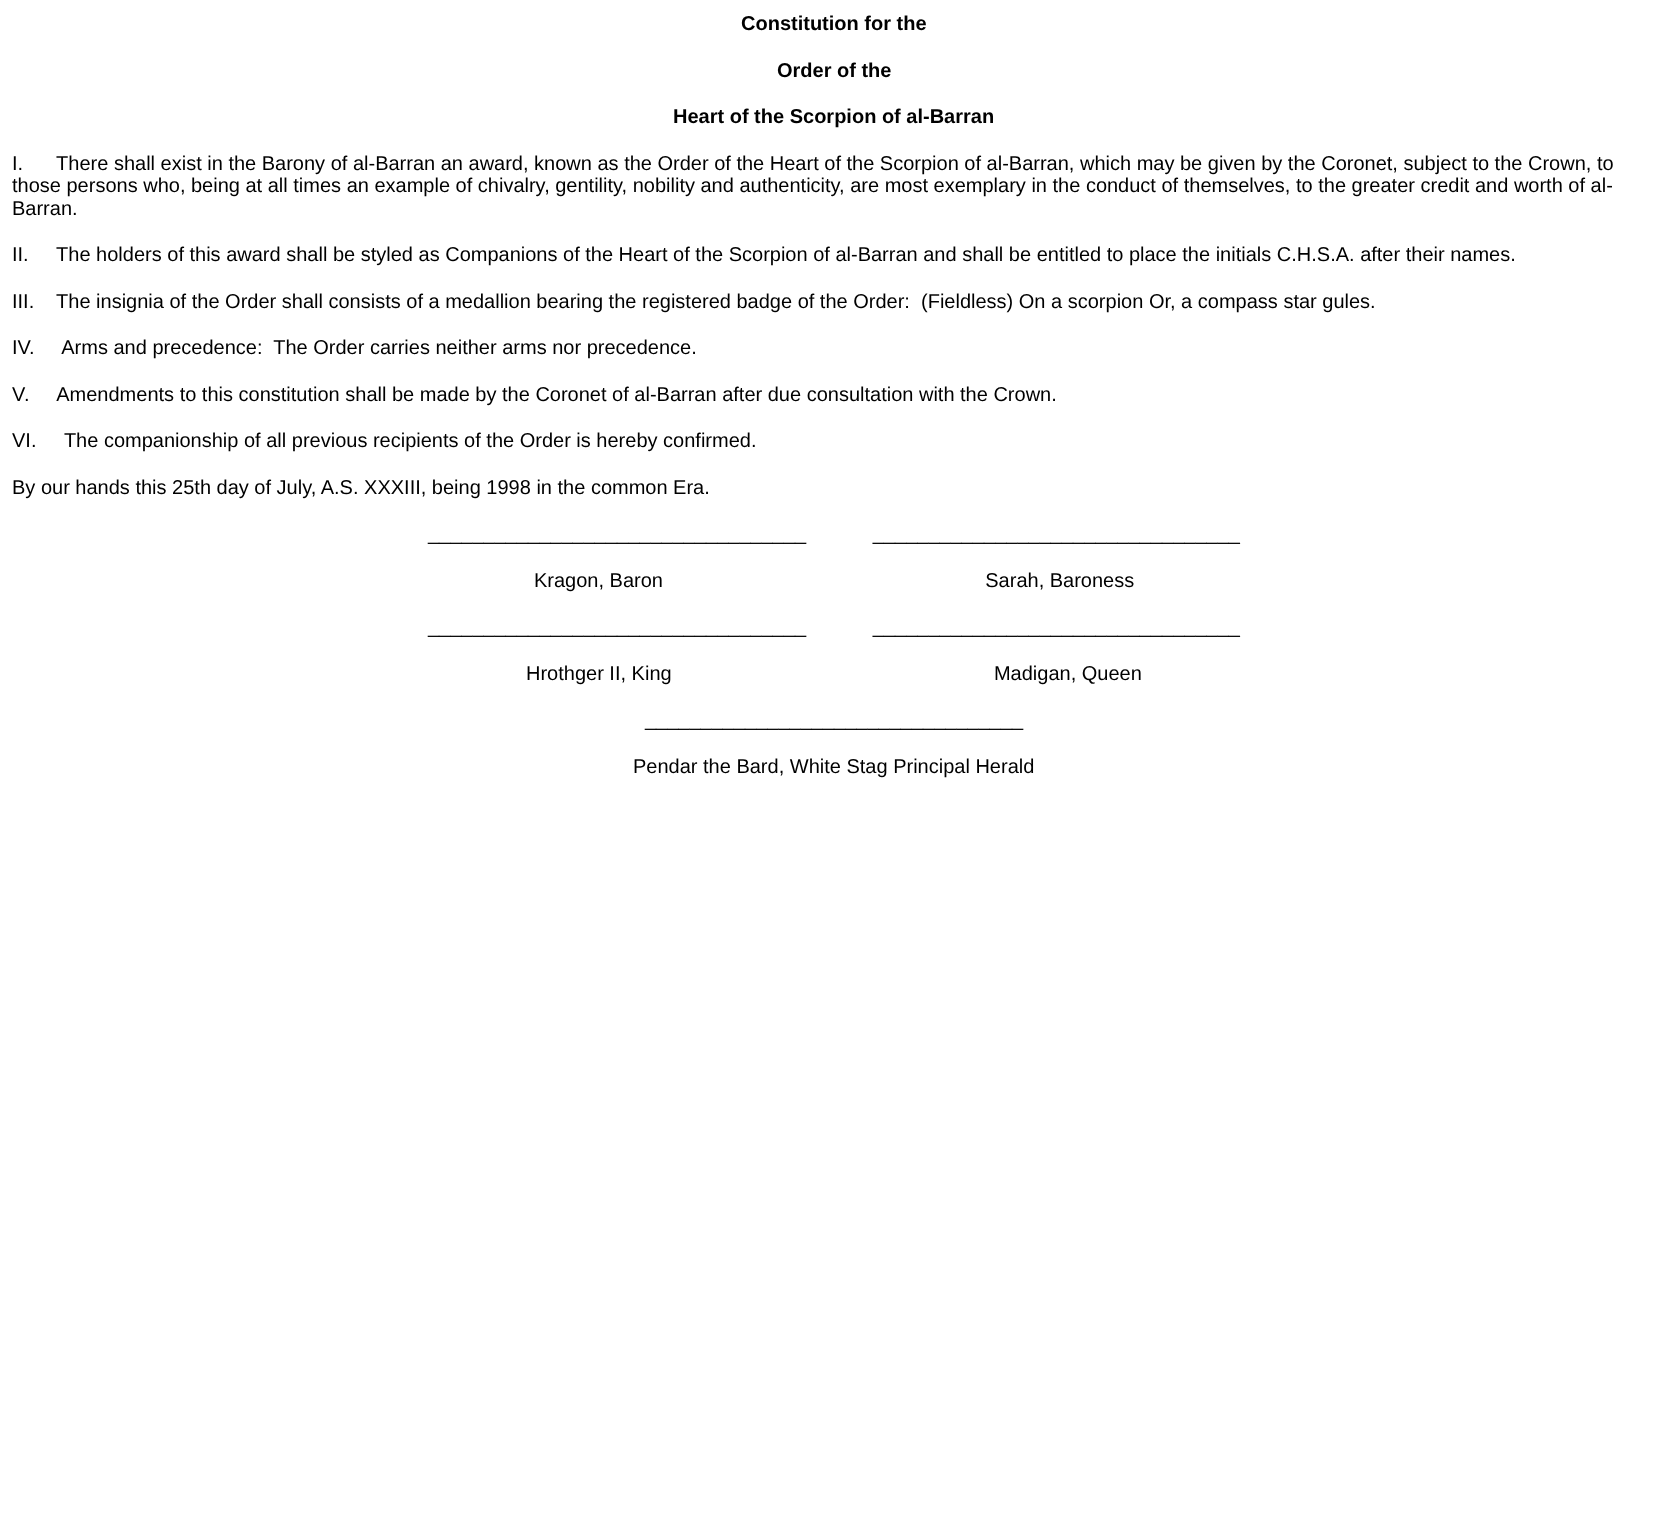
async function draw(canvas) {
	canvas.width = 1668;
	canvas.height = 1529;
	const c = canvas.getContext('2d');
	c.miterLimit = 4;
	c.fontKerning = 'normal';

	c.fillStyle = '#fff';
	c.fillRect(0, 0, 1668, 1529);
	c.font = 'bold 20px Liberation Sans';
	c.fillStyle = '#000';
	for (const [text, x, y] of [
		['Constitution for the', 741, 30],
		['Order of the', 777, 77],
		['Heart of the Scorpion of al-Barran', 673, 123],
	]) {
		c.fillText(text, x, y);
	}
	c.font = '20px Liberation Sans';
	for (const [text, x, y] of [
		['I.      There shall exist in the Barony of al-Barran an award, known as the Order of the Heart of the Scorpion of al-Barran, which may be given by the Coronet, subject to the Crown, to', 12, 170],
		['those persons who, being at all times an example of chivalry, gentility, nobility and authenticity, are most exemplary in the conduct of themselves, to the greater credit and worth of al-', 12, 192],
		['Barran.', 12, 215],
		['II.     The holders of this award shall be styled as Companions of the Heart of the Scorpion of al-Barran and shall be entitled to place the initials C.H.S.A. after their names.', 12, 261],
		['III.    The insignia of the Order shall consists of a medallion bearing the registered badge of the Order:  (Fieldless) On a scorpion Or, a compass star gules.', 12, 308],
		['IV', 12, 354],
		['.     Arms and precedence:  The Order carries neither arms nor precedence.', 29, 354],
		['V', 12, 401],
		['.     Amendments to this constitution shall be made by the Coronet of al-Barran after due consultation with the Crown.', 24, 401],
		['VI.     The companionship of all previous recipients of the Order is hereby confirmed.', 12, 447],
		['By our hands this 25th day of July, A.S. XXXIII, being 1998 in the common Era.', 12, 494],
		['__________________________________            _________________________________', 428, 540],
		['Kragon, Baron                                                          Sarah, Baroness', 534, 587],
		['__________________________________            _________________________________', 428, 633],
		['Hrothger II, King                                                          Madigan, Queen', 526, 680],
		['__________________________________', 645, 726],
		['Pendar the Bard, White Stag Principal Herald', 633, 773],
	]) {
		c.fillText(text, x, y);
	}
}

draw(document.querySelector('canvas'));
